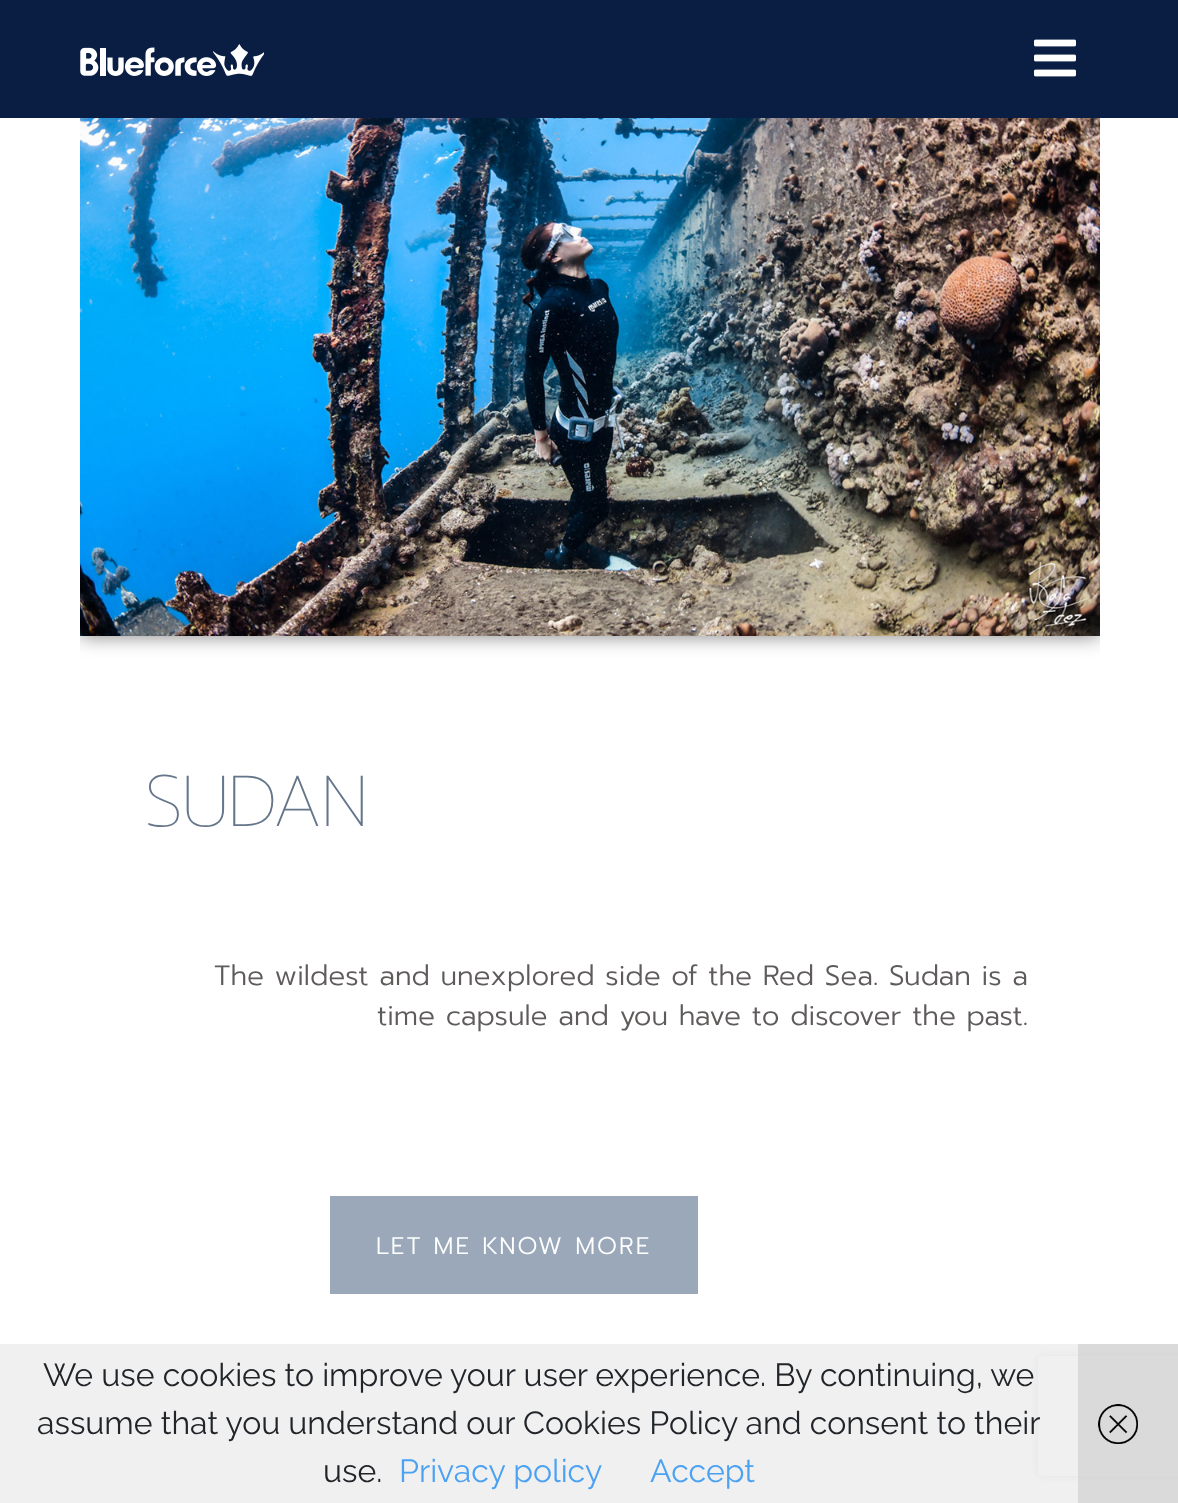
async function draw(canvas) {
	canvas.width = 1178;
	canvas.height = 1503;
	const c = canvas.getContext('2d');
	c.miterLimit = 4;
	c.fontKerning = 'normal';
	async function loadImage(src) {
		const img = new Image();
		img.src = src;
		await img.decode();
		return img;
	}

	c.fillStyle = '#fff';
	c.fillRect(0, 0, 1178, 1503);
	c.save();
	c.beginPath();
	c.rect(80, 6, 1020, 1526);
	c.clip();
	c.fillStyle = '#00000080';
	c.filter = 'blur(10px)';
	c.beginPath();
	c.rect(80, 6, 1020, 630);
	c.fill();
	c.filter = 'none';
	c.restore();
	c.fillStyle = '#0a1e44';
	c.fillRect(0, 0, 1178, 118);
	c.drawImage(await loadImage('img1.png'), 80, 44, 184, 32);
	c.drawImage(await loadImage('img2.png'), 1034, 39, 42, 38);
	c.drawImage(await loadImage('img3.png'), 80, 118, 1020, 518);
	c.letterSpacing = '-2px';
	c.font = '100 72px Prompt';
	c.fillStyle = '#65768b';
	c.fillText('SUDAN', 144, 826);
	c.letterSpacing = '0px';
	c.font = '300 28px Prompt';
	c.fillStyle = '#5f5b5b';
	c.fillText('The wildest and unexplored side of the Red Sea. Sudan is a', 214, 985);
	c.fillText('time capsule and you have to discover the past.', 377, 1025);
	c.fillStyle = '#9aa8ba';
	c.fillRect(330, 1196, 368, 98);
	c.letterSpacing = '2px';
	c.font = '300 24px Prompt';
	c.fillStyle = '#fff';
	c.fillText('LET ME KNOW MORE', 376, 1254);
	c.save();
	c.beginPath();
	c.moveTo(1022, 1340);
	c.lineTo(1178, 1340);
	c.lineTo(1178, 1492);
	c.lineTo(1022, 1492);
	c.closePath();
	c.moveTo(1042, 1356);
	c.lineTo(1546, 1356);
	c.bezierCurveTo(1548, 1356, 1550, 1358, 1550, 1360);
	c.lineTo(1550, 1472);
	c.bezierCurveTo(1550, 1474, 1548, 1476, 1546, 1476);
	c.lineTo(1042, 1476);
	c.bezierCurveTo(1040, 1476, 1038, 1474, 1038, 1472);
	c.lineTo(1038, 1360);
	c.bezierCurveTo(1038, 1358, 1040, 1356, 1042, 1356);
	c.closePath();
	c.clip('evenodd');
	c.fillStyle = '#808080';
	c.filter = 'blur(5px)';
	c.beginPath();
	c.roundRect(1038, 1356, 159, 120, 4);
	c.fill();
	c.filter = 'none';
	c.restore();
	c.fillStyle = '#eeeeeee6';
	c.fillRect(0, 1344, 1178, 159);
	c.letterSpacing = '0px';
	c.font = '32px Raleway';
	c.fillStyle = '#212529';
	for (const [text, x, y] of [
		['We use cookies to improve your user experience. By continuing, we', 43, 1386],
		['assume that you understand our Cookies Policy and consent to their', 37, 1434],
		['use.', 323, 1482],
	]) {
		c.fillText(text, x, y);
	}
	c.fillStyle = '#4ba1f2';
	c.fillText('Privacy policy', 399, 1482);
	c.fillText('Accept', 650, 1482);
	c.fillStyle = '#cccccc99';
	c.fillRect(1078, 1344, 100, 159);
	c.drawImage(await loadImage('img4.png'), 1098, 1404, 40, 40);
}

draw(document.querySelector('canvas'));
